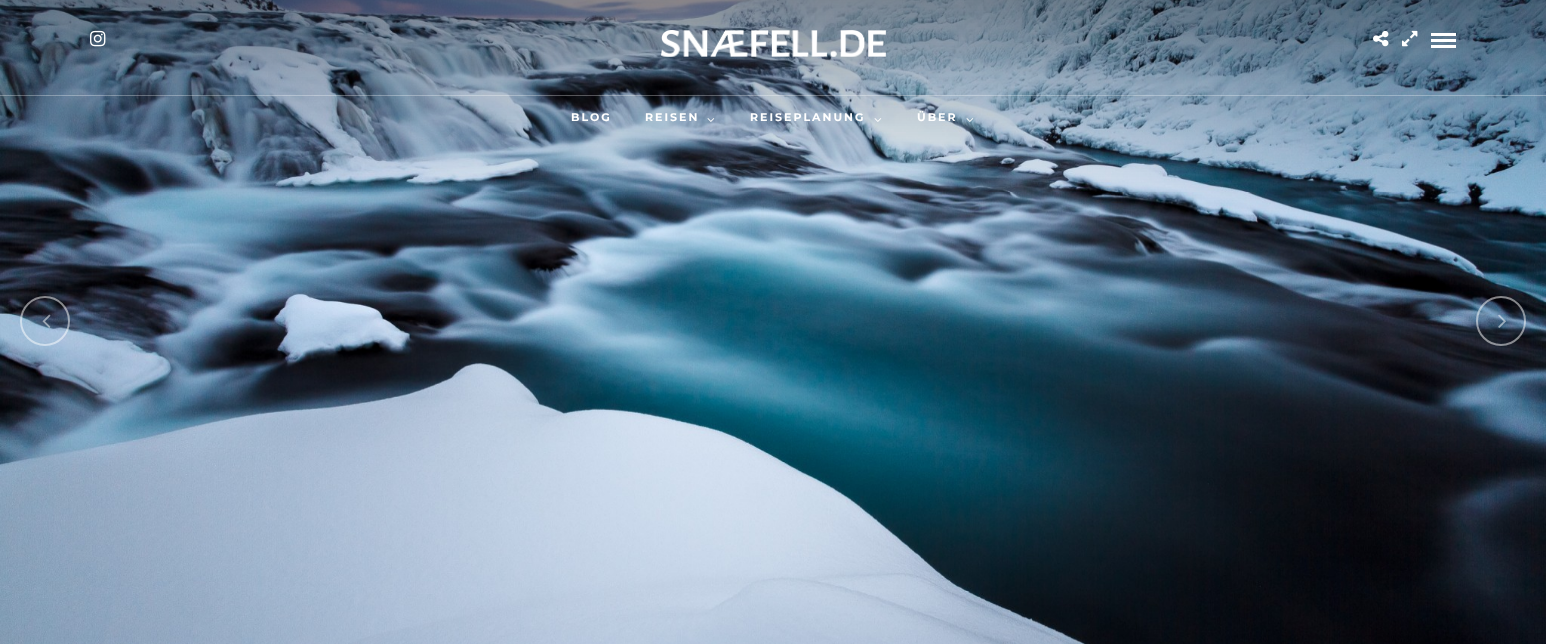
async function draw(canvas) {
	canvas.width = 1546;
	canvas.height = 644;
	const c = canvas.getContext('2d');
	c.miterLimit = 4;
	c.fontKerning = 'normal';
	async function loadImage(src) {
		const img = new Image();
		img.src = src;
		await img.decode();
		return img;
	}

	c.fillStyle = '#fff';
	c.fillRect(0, 0, 1546, 644);
	c.drawImage(await loadImage('img1.png'), 0, 0, 1546, 644);
	c.fillStyle = '#ffffff4d';
	c.fillRect(0, 95, 1546, 1);
	c.drawImage(await loadImage('img2.png'), 90, 30, 16, 17);
	c.drawImage(await loadImage('img3.png'), 661, 30, 225, 27);
	c.drawImage(await loadImage('img4.png'), 1373, 30, 16, 17);
	c.drawImage(await loadImage('img5.png'), 1402, 30, 16, 17);
	for (const [x, y, w, h, color] of [
		[1431, 33, 25, 3, '#fff'],
		[1431, 39, 25, 3, '#fff'],
		[1431, 45, 25, 3, '#fff'],
	]) {
		c.fillStyle = color;
		c.fillRect(x, y, w, h);
	}
	c.letterSpacing = '2px';
	c.font = 'bold 11px Montserrat';
	c.fillText('BLOG', 571, 121);
	c.fillText('REISEN', 645, 121);
	c.drawImage(await loadImage('img6.png'), 707, 118, 8, 4);
	c.fillText('REISEPLANUNG', 750, 121);
	c.drawImage(await loadImage('img7.png'), 874, 118, 8, 4);
	c.fillText('ÜBER', 917, 121);
	c.drawImage(await loadImage('img8.png'), 966, 118, 8, 4);
	c.beginPath();
	c.arc(45, 321, 24, 0, 2 * Math.PI);
	c.strokeStyle = '#ffffff80';
	c.lineWidth = 2;
	c.stroke();
	c.drawImage(await loadImage('img9.png'), 42, 314, 9, 14);
	c.beginPath();
	c.arc(1501, 321, 24, 0, 2 * Math.PI);
	c.stroke();
	c.drawImage(await loadImage('img10.png'), 1498, 314, 8, 14);
}

draw(document.querySelector('canvas'));
